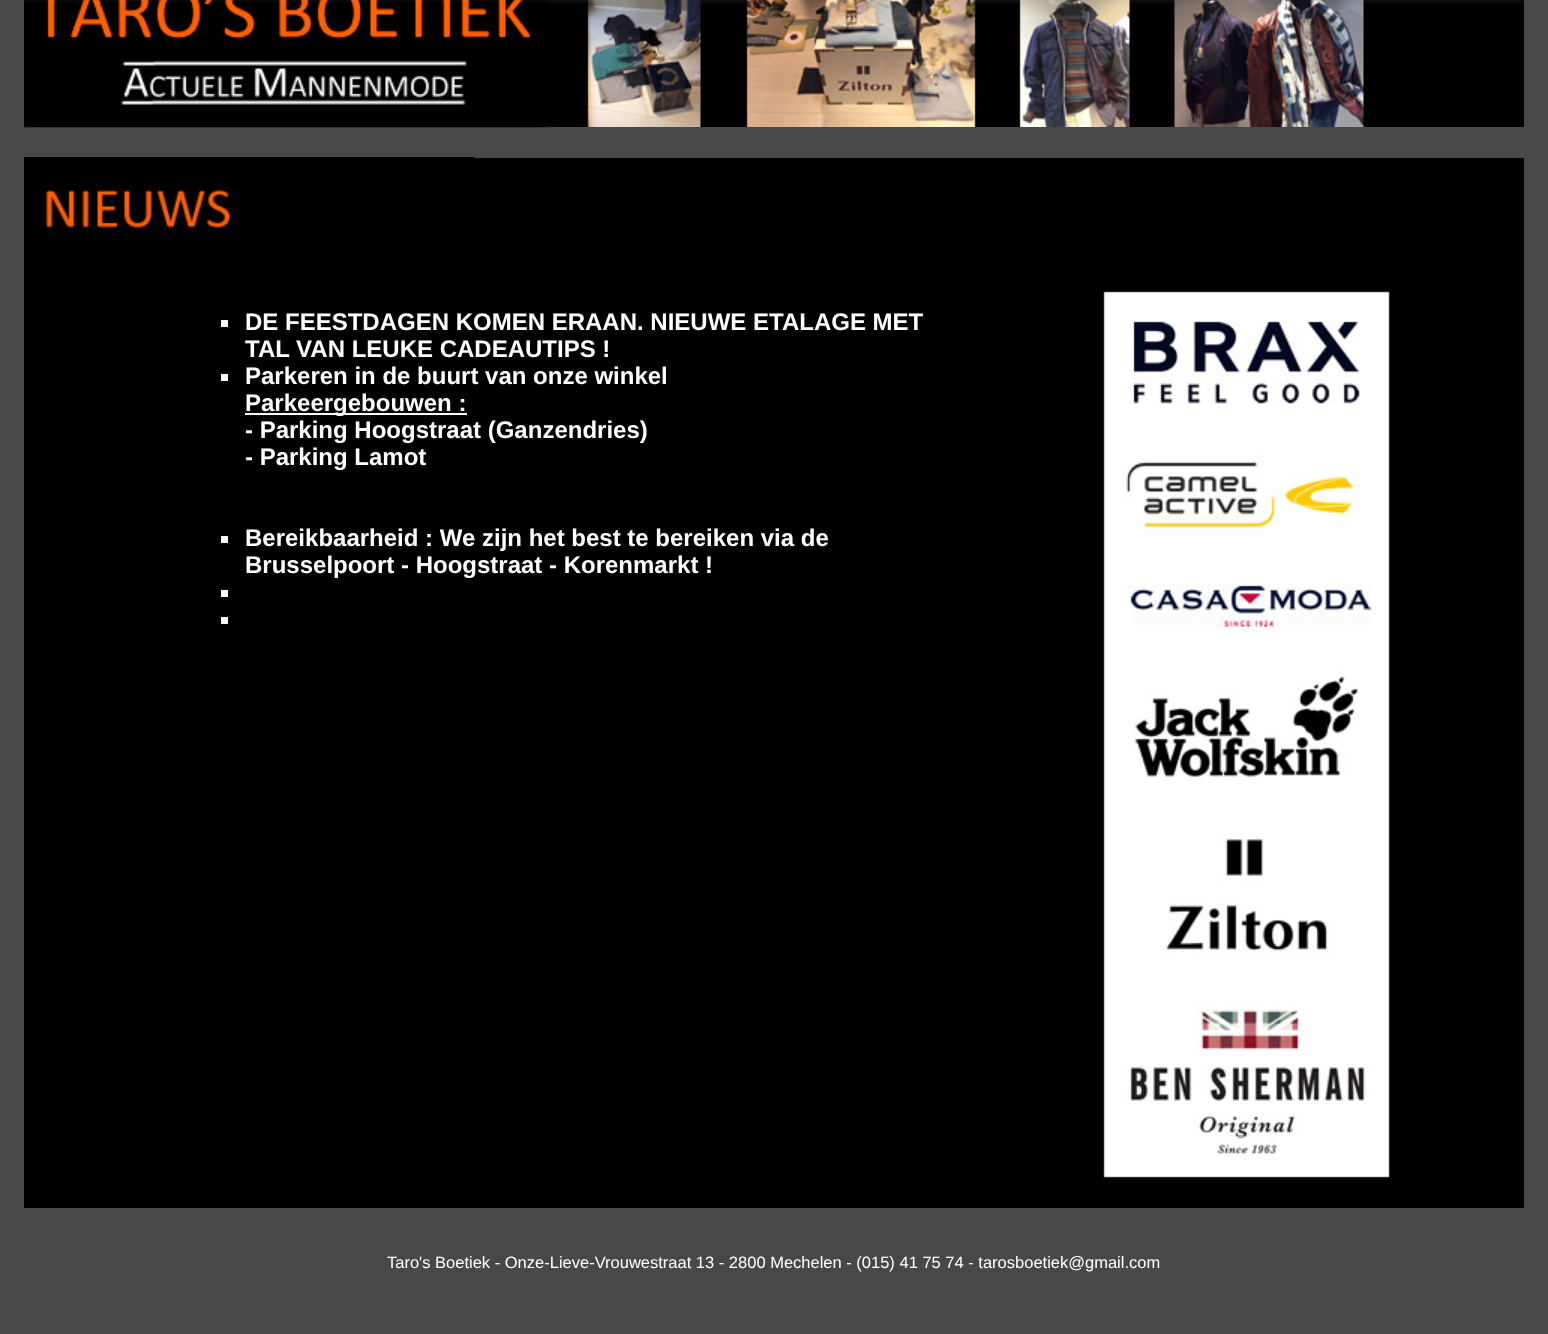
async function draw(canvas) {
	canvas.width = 1548;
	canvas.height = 1334;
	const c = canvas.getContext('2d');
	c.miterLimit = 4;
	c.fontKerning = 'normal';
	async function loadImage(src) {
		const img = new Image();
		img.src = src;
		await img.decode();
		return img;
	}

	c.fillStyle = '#484848';
	c.fillRect(0, 0, 1548, 1334);
	c.fillStyle = '#800080';
	c.fillRect(24, 127, 525, 1);
	c.drawImage(await loadImage('img1.png'), 24, 0, 525, 127);
	c.drawImage(await loadImage('img2.png'), 549, 0, 975, 127);
	c.fillStyle = '#000';
	c.fillRect(24, 158, 1500, 1050);
	c.drawImage(await loadImage('img3.png'), 24, 157, 450, 72);
	c.fillStyle = '#fff';
	c.fillRect(221, 320, 7, 7);
	c.font = 'bold 24px Liberation Sans';
	c.fillText('DE FEESTDAGEN KOMEN ERAAN. NIEUWE ETALAGE MET', 245, 330);
	c.fillText('TAL VAN LEUKE CADEAUTIPS !', 245, 357);
	c.fillRect(221, 374, 7, 7);
	c.fillText('Parkeren in de buurt van onze winkel', 245, 384);
	c.fillRect(245, 413, 222, 2);
	for (const [text, x, y] of [
		['Parkeergebouwen :', 245, 411],
		['- Parking Hoogstraat (Ganzendries)', 245, 438],
		['- Parking Lamot', 245, 465],
	]) {
		c.fillText(text, x, y);
	}
	c.fillRect(221, 536, 7, 7);
	c.fillText('Bereikbaarheid : We zijn het best te bereiken via de', 245, 546);
	c.fillText('Brusselpoort - Hoogstraat - Korenmarkt !', 245, 573);
	c.fillRect(221, 590, 7, 7);
	c.fillRect(221, 617, 7, 7);
	c.drawImage(await loadImage('img4.png'), 1103, 291, 287, 887);
	c.font = '16.5px Liberation Sans';
	c.fillText('Taro\'s Boetiek - Onze-Lieve-Vrouwestraat 13 - 2800 Mechelen - (015) 41 75 74 - tarosboetiek@gmail.com', 387, 1268);
}

draw(document.querySelector('canvas'));
